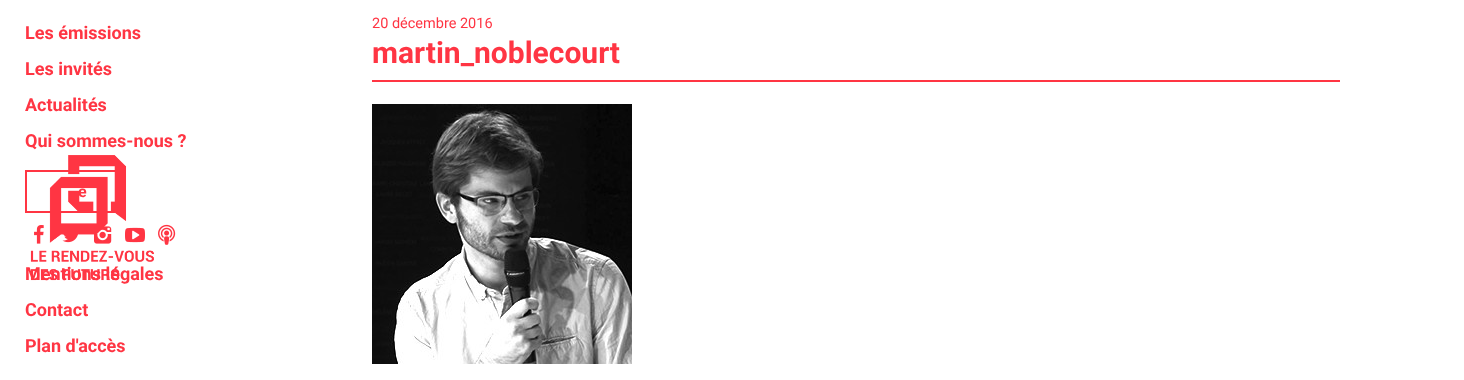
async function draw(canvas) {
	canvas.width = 1464;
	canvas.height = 380;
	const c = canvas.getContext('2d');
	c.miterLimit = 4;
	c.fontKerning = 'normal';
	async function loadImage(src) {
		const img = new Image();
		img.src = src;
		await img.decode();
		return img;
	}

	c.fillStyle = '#fff';
	c.fillRect(0, 0, 1464, 380);
	c.font = 'bold 18px Roboto';
	c.fillStyle = '#ff3543';
	for (const [text, x, y] of [
		['Les émissions', 25, 39],
		['Les invités', 25, 75],
		['Actualités', 25, 111],
		['Qui sommes-nous ?', 25, 147],
	]) {
		c.fillText(text, x, y);
	}
	c.strokeStyle = '#ff3543';
	c.lineWidth = 2;
	c.strokeRect(26, 171, 92, 41);
	c.font = 'bold 16px Roboto';
	c.fillText('e', 78, 197);
	c.drawImage(await loadImage('img1.png'), 30, 155, 124, 126);
	c.drawImage(await loadImage('img2.png'), 34, 225, 10, 19);
	c.drawImage(await loadImage('img3.png'), 62, 234, 16, 9);
	c.drawImage(await loadImage('img4.png'), 94, 226, 18, 18);
	c.drawImage(await loadImage('img5.png'), 125, 227, 20, 16);
	c.drawImage(await loadImage('img6.png'), 158, 224, 18, 21);
	c.font = 'bold 18px Roboto';
	for (const [text, x, y] of [
		['Mentions légales', 25, 280],
		['Contact', 25, 316],
		['Plan d\'accès', 25, 352],
	]) {
		c.fillText(text, x, y);
	}
	c.font = '14.5px Roboto';
	c.fillText('20 décembre 2016', 372, 28);
	c.fillRect(372, 80, 968, 2);
	c.font = 'bold 30px Roboto';
	c.fillText('martin_noblecourt', 372, 63);
	c.drawImage(await loadImage('img7.png'), 372, 104, 260, 260);
}

draw(document.querySelector('canvas'));
